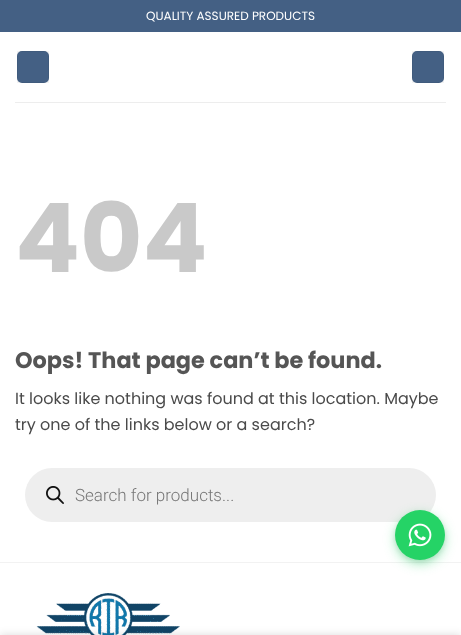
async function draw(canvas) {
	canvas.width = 461;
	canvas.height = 635;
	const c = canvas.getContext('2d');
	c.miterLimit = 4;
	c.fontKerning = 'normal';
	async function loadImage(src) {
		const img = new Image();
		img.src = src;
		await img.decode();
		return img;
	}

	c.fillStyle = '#fff';
	c.fillRect(0, 0, 461, 635);
	c.fillStyle = '#446084';
	c.fillRect(0, 0, 461, 32);
	c.font = '12px Poppins';
	c.fillStyle = '#fff';
	c.fillText('QUALITY ASSURED PRODUCTS', 146, 20);
	c.fillStyle = '#446084';
	c.beginPath();
	c.roundRect(17, 51, 32, 32, 5);
	c.fill();
	c.strokeStyle = '#0000000d';
	c.strokeRect(17.5, 51.5, 31, 31);
	c.beginPath();
	c.roundRect(412, 51, 32, 32, 5);
	c.fill();
	c.strokeRect(412.5, 51.5, 31, 31);
	c.fillStyle = '#ededed';
	c.fillRect(15, 102, 431, 1);
	c.font = 'bold 96px Poppins';
	c.fillStyle = '#c9c9c9';
	c.fillText('404', 15, 272);
	c.font = 'bold 22.4px Poppins';
	c.fillStyle = '#555';
	c.fillText('Oops! That page can’t be found.', 15, 368);
	c.font = '16px Poppins';
	c.fillStyle = '#4a4a4a';
	c.fillText('It looks like nothing was found at this location. Maybe', 15, 404);
	c.fillText('try one of the links below or a search?', 15, 430);
	c.fillStyle = '#eee';
	c.beginPath();
	c.roundRect(25, 468, 411, 54, 27);
	c.fill();
	c.drawImage(await loadImage('img1.png'), 46, 486, 18, 18);
	c.font = '300 17px Roboto';
	c.fillStyle = '#777';
	c.fillText('Search for products...', 75, 501);
	c.fillStyle = '#f2f2f2';
	c.fillRect(0, 562, 461, 1);
	c.drawImage(await loadImage('img2.png'), 36, 593, 144, 42);
	c.fillStyle = '#0000001a';
	c.filter = 'blur(2px)';
	c.beginPath();
	c.roundRect(395, 512, 50, 50, 25);
	c.fill();
	c.filter = 'none';
	c.fillStyle = '#25d36666';
	c.filter = 'blur(6px)';
	c.beginPath();
	c.roundRect(395, 514, 50, 50, 25);
	c.fill();
	c.filter = 'none';
	c.fillStyle = '#25d366';
	c.beginPath();
	c.arc(420, 535, 25, 0, 2 * Math.PI);
	c.fill();
	c.drawImage(await loadImage('img3.png'), 408, 523, 24, 24);
	c.fillStyle = '#00000024';
	c.filter = 'blur(4.5px)';
	c.beginPath();
	c.rect(0, 635, 461, 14);
	c.fill();
	c.filter = 'none';
}

draw(document.querySelector('canvas'));
